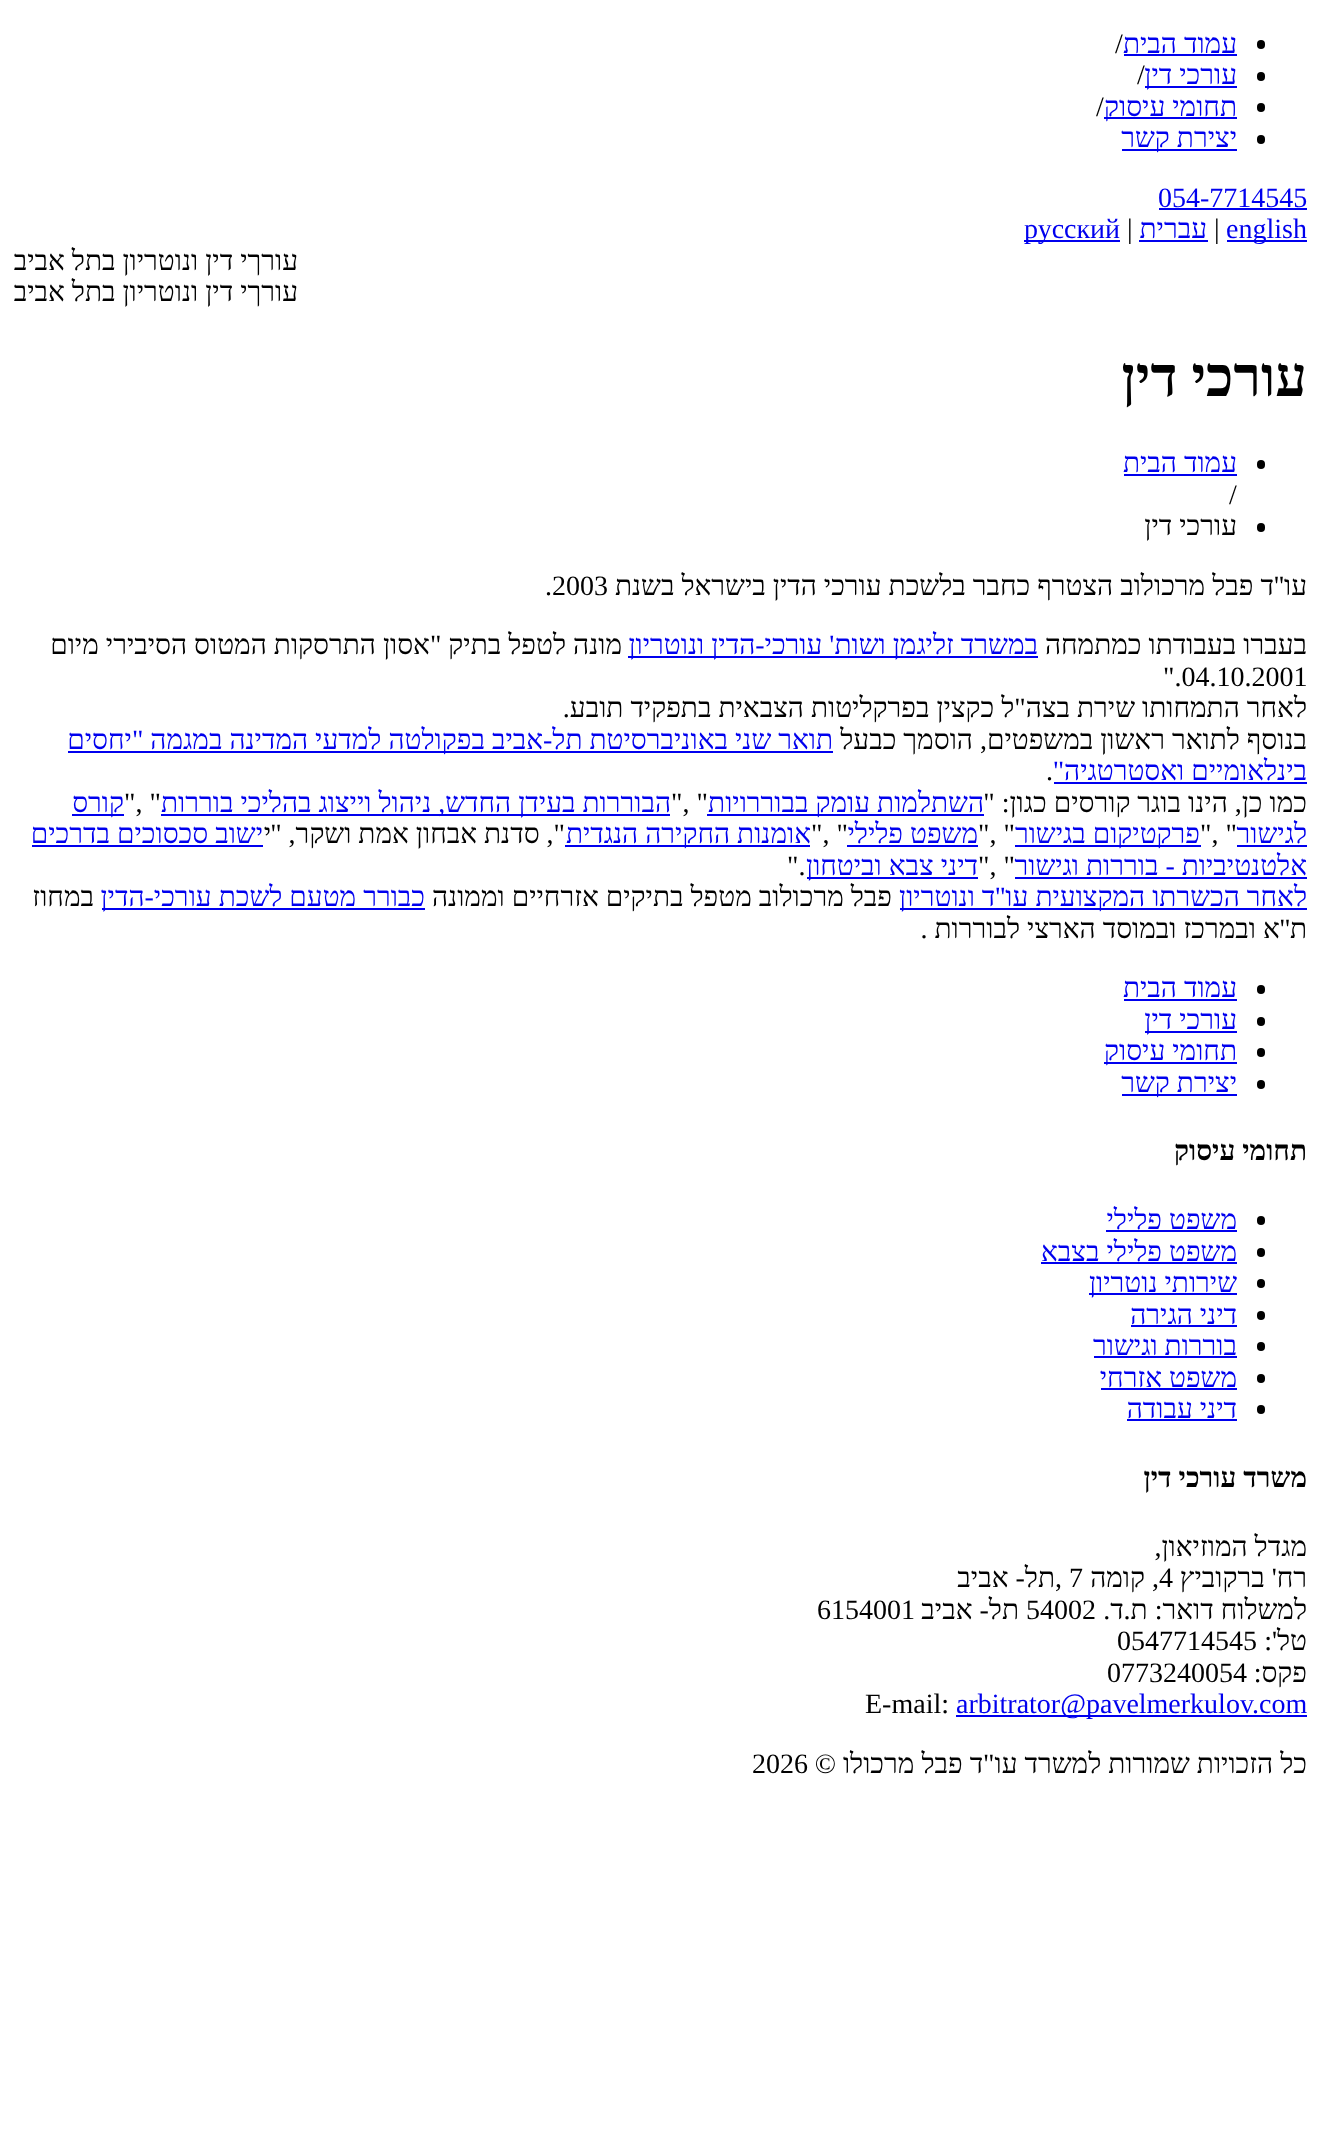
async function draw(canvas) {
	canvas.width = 1320;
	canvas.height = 2144;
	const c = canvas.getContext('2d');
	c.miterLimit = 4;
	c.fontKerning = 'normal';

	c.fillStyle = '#fff';
	c.fillRect(0, 0, 1320, 2144);
	c.fillStyle = '#000';
	c.beginPath();
	c.roundRect(1257, 40, 8, 9, 4);
	c.fill();
	c.direction = 'rtl';
	c.font = '28px Liberation Serif';
	c.fillStyle = '#00e';
	c.fillText('עמוד הבית', 1237, 53);
	c.fillRect(1124, 54, 113, 2);
	c.direction = 'ltr';
	c.fillStyle = '#000';
	c.fillText('/', 1115, 53);
	c.beginPath();
	c.roundRect(1257, 72, 8, 9, 4);
	c.fill();
	c.fillStyle = '#00e';
	c.fillRect(1145, 86, 92, 2);
	c.direction = 'rtl';
	c.fillText('עורכי דין', 1237, 84);
	c.direction = 'ltr';
	c.fillStyle = '#000';
	c.fillText('/', 1137, 84);
	c.beginPath();
	c.roundRect(1257, 103, 8, 9, 4);
	c.fill();
	c.fillStyle = '#00e';
	c.fillRect(1104, 117, 133, 2);
	c.direction = 'rtl';
	c.fillText('תחומי עיסוק', 1237, 116);
	c.direction = 'ltr';
	c.fillStyle = '#000';
	c.fillText('/', 1096, 116);
	c.beginPath();
	c.roundRect(1257, 135, 8, 9, 4);
	c.fill();
	c.fillStyle = '#00e';
	c.fillRect(1122, 149, 115, 2);
	c.direction = 'rtl';
	c.fillText('יצירת קשר', 1237, 147);
	c.direction = 'ltr';
	c.fillText('054-7714545', 1158, 207);
	c.fillRect(1159, 208, 148, 2);
	c.fillRect(1227, 240, 80, 2);
	c.fillText('english', 1226, 238);
	c.fillStyle = '#000';
	c.fillText('|', 1214, 238);
	c.direction = 'rtl';
	c.fillStyle = '#00e';
	c.fillText('עברית', 1207, 238);
	c.fillRect(1139, 240, 69, 2);
	c.direction = 'ltr';
	c.fillStyle = '#000';
	c.fillText('|', 1127, 238);
	c.fillStyle = '#00e';
	c.fillRect(1024, 240, 96, 2);
	c.fillText('русский', 1024, 238);
	c.direction = 'rtl';
	c.fillStyle = '#000';
	c.fillText('עורךי דין ונוטריון בתל אביב', 298, 270);
	c.fillText('עורךי דין ונוטריון בתל אביב', 298, 301);
	c.font = 'bold 56px Liberation Serif';
	c.fillText('עורכי דין', 1307, 396);
	c.beginPath();
	c.roundRect(1257, 460, 8, 9, 4);
	c.fill();
	c.font = '28px Liberation Serif';
	c.fillStyle = '#00e';
	c.fillText('עמוד הבית', 1237, 472);
	c.fillRect(1124, 474, 113, 2);
	c.direction = 'ltr';
	c.fillStyle = '#000';
	c.fillText('/', 1229, 504);
	c.beginPath();
	c.roundRect(1257, 523, 8, 9, 4);
	c.fill();
	c.direction = 'rtl';
	c.fillText('עורכי דין', 1237, 535);
	c.fillText('עו\'\'ד פבל מרכולוב הצטרף כחבר בלשכת עורכי הדין בישראל בשנת', 1307, 595);
	c.direction = 'ltr';
	c.fillText('.2003', 545, 595);
	c.direction = 'rtl';
	c.fillText('בעברו בעבודתו כמתמחה', 1307, 654);
	c.fillStyle = '#00e';
	c.fillRect(628, 656, 410, 2);
	c.fillText('במשרד זליגמן ושות\' עורכי-הדין ונוטריון', 1038, 654);
	c.fillStyle = '#000';
	c.fillText('מונה לטפל בתיק "אסון התרסקות המטוס הסיבירי מיום', 622, 654);
	c.direction = 'ltr';
	c.fillText('".04.10.2001', 1163, 686);
	c.direction = 'rtl';
	c.fillText('לאחר התמחותו שירת בצה"ל כקצין בפרקליטות הצבאית בתפקיד תובע.', 1307, 717);
	c.fillText('בנוסף לתואר ראשון במשפטים, הוסמך כבעל', 1307, 749);
	c.fillStyle = '#00e';
	c.fillRect(68, 751, 765, 2);
	c.fillText('תואר שני באוניברסיטת תל-אביב בפקולטה למדעי המדינה במגמה "יחסים', 833, 749);
	c.fillText('בינלאומיים ואסטרטגיה"', 1307, 780);
	c.fillRect(1054, 782, 253, 2);
	c.direction = 'ltr';
	c.fillStyle = '#000';
	c.fillText('.', 1046, 780);
	c.direction = 'rtl';
	c.fillText('כמו כן, הינו בוגר קורסים כגון: "', 1307, 812);
	c.fillStyle = '#00e';
	c.fillRect(707, 814, 277, 2);
	c.fillText('השתלמות עומק בבוררויות', 984, 812);
	c.direction = 'ltr';
	c.fillStyle = '#000';
	c.fillText('", "', 671, 812);
	c.fillStyle = '#00e';
	c.fillRect(161, 814, 509, 2);
	c.direction = 'rtl';
	c.fillText('הבוררות בעידן החדש, ניהול וייצוג בהליכי בוררות', 671, 812);
	c.direction = 'ltr';
	c.fillStyle = '#000';
	c.fillText('", "', 124, 812);
	c.fillStyle = '#00e';
	c.fillRect(72, 814, 52, 2);
	c.direction = 'rtl';
	c.fillText('קורס', 124, 812);
	c.fillText('לגישור', 1307, 843);
	c.fillRect(1237, 845, 70, 2);
	c.direction = 'ltr';
	c.fillStyle = '#000';
	c.fillText('", "', 1200, 843);
	c.fillStyle = '#00e';
	c.fillRect(1015, 845, 186, 2);
	c.direction = 'rtl';
	c.fillText('פרקטיקום בגישור', 1200, 843);
	c.direction = 'ltr';
	c.fillStyle = '#000';
	c.fillText('", "', 978, 843);
	c.direction = 'rtl';
	c.fillStyle = '#00e';
	c.fillText('משפט פלילי', 978, 843);
	c.fillRect(847, 845, 131, 2);
	c.direction = 'ltr';
	c.fillStyle = '#000';
	c.fillText('", "', 811, 843);
	c.fillStyle = '#00e';
	c.fillRect(565, 845, 245, 2);
	c.direction = 'rtl';
	c.fillText('אומנות החקירה הנגדית', 811, 843);
	c.fillStyle = '#000';
	c.fillText('", סדנת אבחון אמת ושקר, "', 565, 843);
	c.fillText('י', 271, 843);
	c.fillStyle = '#00e';
	c.fillText('ישוב סכסוכים בדרכים', 263, 843);
	c.fillRect(32, 845, 231, 2);
	c.fillText('אלטנטיביות - בוררות וגישור', 1307, 875);
	c.fillRect(1015, 877, 292, 2);
	c.direction = 'ltr';
	c.fillStyle = '#000';
	c.fillText('", "', 978, 875);
	c.fillStyle = '#00e';
	c.fillRect(807, 877, 171, 2);
	c.direction = 'rtl';
	c.fillText('דיני צבא וביטחון', 978, 875);
	c.direction = 'ltr';
	c.fillStyle = '#000';
	c.fillText('".', 787, 875);
	c.fillStyle = '#00e';
	c.fillRect(900, 908, 407, 2);
	c.direction = 'rtl';
	c.fillText('לאחר הכשרתו המקצועית עו\'\'ד ונוטריון', 1307, 906);
	c.fillStyle = '#000';
	c.fillText('פבל מרכולוב מטפל בתיקים אזרחיים וממונה', 892, 906);
	c.fillStyle = '#00e';
	c.fillRect(102, 908, 323, 2);
	c.fillText('כבורר מטעם לשכת עורכי-הדין', 425, 906);
	c.fillStyle = '#000';
	c.fillText('במחוז', 94, 906);
	c.fillText('ת\'\'א ובמרכז ובמוסד הארצי לבוררות .', 1307, 938);
	c.beginPath();
	c.roundRect(1257, 985, 8, 9, 4);
	c.fill();
	c.fillStyle = '#00e';
	c.fillText('עמוד הבית', 1237, 997);
	c.fillRect(1124, 999, 113, 2);
	c.fillStyle = '#000';
	c.beginPath();
	c.roundRect(1257, 1017, 8, 9, 4);
	c.fill();
	c.fillStyle = '#00e';
	c.fillRect(1145, 1031, 92, 2);
	c.fillText('עורכי דין', 1237, 1029);
	c.fillStyle = '#000';
	c.beginPath();
	c.roundRect(1257, 1048, 8, 9, 4);
	c.fill();
	c.fillStyle = '#00e';
	c.fillRect(1104, 1062, 133, 2);
	c.fillText('תחומי עיסוק', 1237, 1060);
	c.fillStyle = '#000';
	c.beginPath();
	c.roundRect(1257, 1080, 8, 9, 4);
	c.fill();
	c.fillStyle = '#00e';
	c.fillRect(1122, 1094, 115, 2);
	c.fillText('יצירת קשר', 1237, 1092);
	c.font = 'bold 28px Liberation Serif';
	c.fillStyle = '#000';
	c.fillText('תחומי עיסוק', 1307, 1160);
	c.beginPath();
	c.roundRect(1257, 1216, 8, 9, 4);
	c.fill();
	c.font = '28px Liberation Serif';
	c.fillStyle = '#00e';
	c.fillText('משפט פלילי', 1237, 1229);
	c.fillRect(1106, 1230, 131, 2);
	c.fillStyle = '#000';
	c.beginPath();
	c.roundRect(1257, 1248, 8, 9, 4);
	c.fill();
	c.fillStyle = '#00e';
	c.fillText('משפט פלילי בצבא', 1237, 1261);
	c.fillRect(1041, 1262, 196, 2);
	c.fillStyle = '#000';
	c.beginPath();
	c.roundRect(1257, 1279, 8, 9, 4);
	c.fill();
	c.fillStyle = '#00e';
	c.fillRect(1089, 1293, 148, 2);
	c.fillText('שירותי נוטריון', 1237, 1292);
	c.fillStyle = '#000';
	c.beginPath();
	c.roundRect(1257, 1311, 8, 9, 4);
	c.fill();
	c.fillStyle = '#00e';
	c.fillText('דיני הגירה', 1237, 1324);
	c.fillRect(1131, 1325, 106, 2);
	c.fillStyle = '#000';
	c.beginPath();
	c.roundRect(1257, 1342, 8, 9, 4);
	c.fill();
	c.fillStyle = '#00e';
	c.fillText('בוררות וגישור', 1237, 1355);
	c.fillRect(1094, 1356, 143, 2);
	c.fillStyle = '#000';
	c.beginPath();
	c.roundRect(1257, 1374, 8, 9, 4);
	c.fill();
	c.fillStyle = '#00e';
	c.fillText('משפט אזרחי', 1237, 1387);
	c.fillRect(1101, 1388, 136, 2);
	c.fillStyle = '#000';
	c.beginPath();
	c.roundRect(1257, 1405, 8, 9, 4);
	c.fill();
	c.fillStyle = '#00e';
	c.fillText('דיני עבודה', 1237, 1418);
	c.fillRect(1127, 1419, 110, 2);
	c.font = 'bold 28px Liberation Serif';
	c.fillStyle = '#000';
	c.fillText('משרד עורכי דין', 1307, 1487);
	c.font = '28px Liberation Serif';
	c.fillText('מגדל המוזיאון,', 1307, 1556);
	c.fillText('רח\' ברקוביץ', 1307, 1587);
	c.direction = 'ltr';
	c.fillText('4', 1159, 1587);
	c.direction = 'rtl';
	c.fillText(', קומה', 1159, 1587);
	c.direction = 'ltr';
	c.fillText('7', 1069, 1587);
	c.direction = 'rtl';
	c.fillText(',תל- אביב', 1062, 1587);
	c.fillText('למשלוח דואר: ת.ד.', 1307, 1619);
	c.direction = 'ltr';
	c.fillText('54002', 1026, 1619);
	c.direction = 'rtl';
	c.fillText('תל- אביב', 1019, 1619);
	c.direction = 'ltr';
	c.fillText('6154001', 817, 1619);
	c.direction = 'rtl';
	c.fillText('טל\':', 1307, 1650);
	c.direction = 'ltr';
	c.fillText('0547714545', 1117, 1650);
	c.direction = 'rtl';
	c.fillText('פקס:', 1307, 1682);
	c.direction = 'ltr';
	c.fillText('0773240054', 1107, 1682);
	c.fillStyle = '#00e';
	c.fillRect(956, 1715, 351, 2);
	c.fillText('arbitrator@pavelmerkulov.com', 956, 1713);
	c.fillStyle = '#000';
	c.fillText('E-mail:', 865, 1713);
	c.direction = 'rtl';
	c.fillText('כל הזכויות שמורות למשרד עו"ד פבל מרכולו ©', 1307, 1773);
	c.direction = 'ltr';
	c.fillText('2026', 752, 1773);
}

draw(document.querySelector('canvas'));
